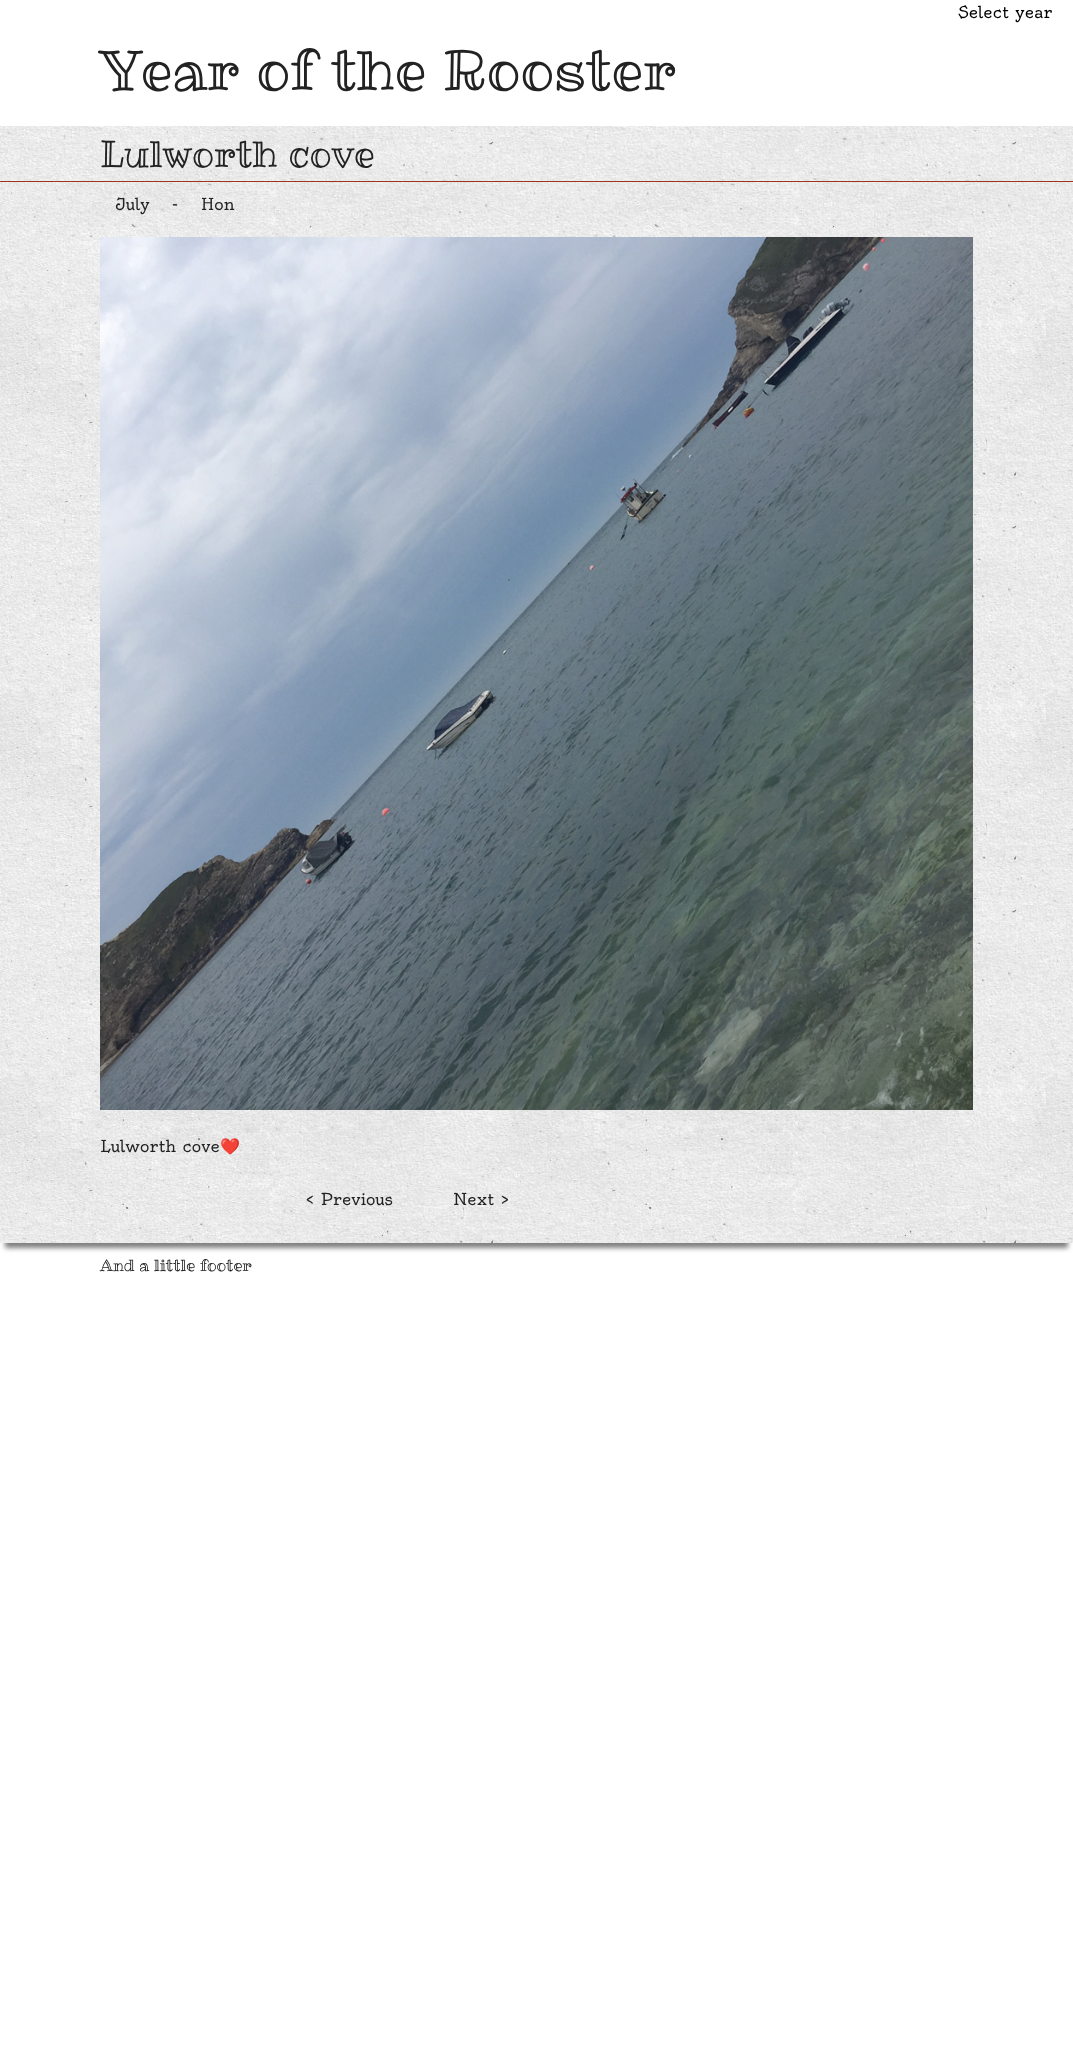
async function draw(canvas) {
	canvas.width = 1073;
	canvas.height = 2069;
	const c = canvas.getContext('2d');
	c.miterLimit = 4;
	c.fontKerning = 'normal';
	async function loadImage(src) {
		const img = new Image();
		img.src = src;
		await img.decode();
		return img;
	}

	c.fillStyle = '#fff';
	c.fillRect(0, 0, 1073, 2069);
	c.font = '16px Oldenburg';
	c.fillStyle = '#000';
	c.fillText('Select year', 958, 18);
	c.font = '56px Ribeye Marrow';
	c.fillStyle = '#222';
	c.fillText('Year of the Rooster', 100, 90);
	c.fillStyle = '#00000080';
	c.filter = 'blur(2.5px)';
	c.beginPath();
	c.rect(5, 141, 1063, 1107);
	c.fill();
	c.filter = 'none';
	c.drawImage(await loadImage('img1.png'), 0, 126, 1073, 1117);
	c.fillStyle = '#9a3521';
	c.fillRect(0, 181, 1073, 1);
	c.font = '36.75px Ribeye Marrow';
	c.fillStyle = '#222';
	c.fillText('Lulworth cove', 100, 167);
	c.font = '16px Oldenburg';
	c.fillText('July', 115, 210);
	c.fillStyle = '#000';
	c.fillText('-', 171, 210);
	c.fillStyle = '#222';
	c.fillText('Hon', 201, 210);
	c.drawImage(await loadImage('img2.png'), 100, 237, 873, 873);
	c.fillText('Lulworth cove', 100, 1152);
	c.font = '16px Noto Color Emoji';
	c.fillText('❤️', 220, 1152);
	c.font = '16px Oldenburg';
	c.fillText('< Previous', 306, 1205);
	c.fillText('Next >', 453, 1205);
	c.font = '16px Ribeye Marrow';
	c.fillText('And a little footer', 100, 1271);
}

draw(document.querySelector('canvas'));
